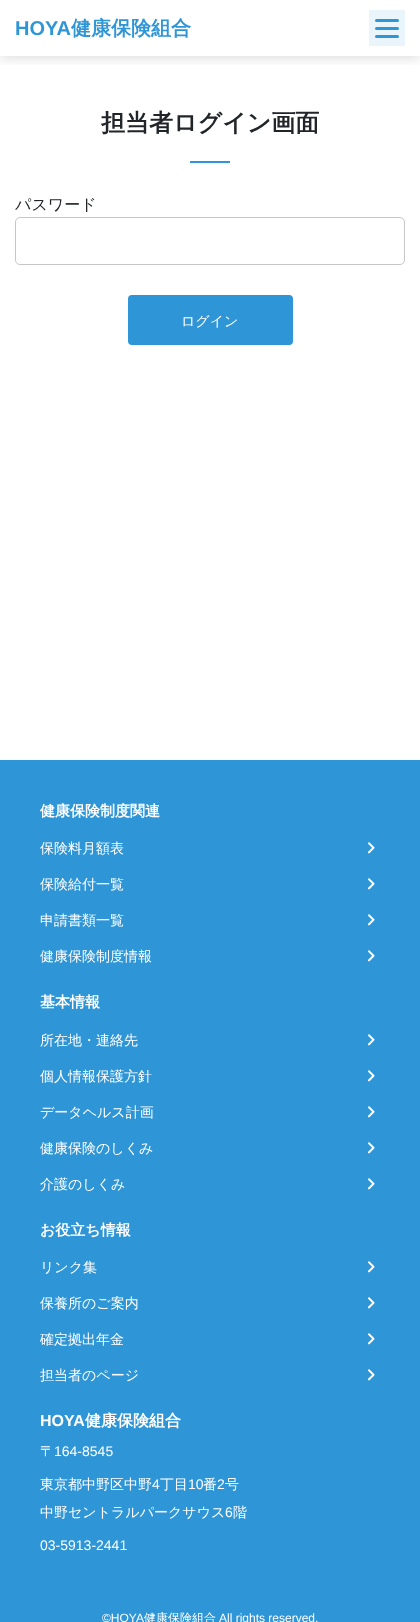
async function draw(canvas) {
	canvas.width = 420;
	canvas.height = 1622;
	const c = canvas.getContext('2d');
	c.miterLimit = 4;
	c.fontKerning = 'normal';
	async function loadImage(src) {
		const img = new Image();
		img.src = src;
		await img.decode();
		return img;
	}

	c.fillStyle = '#fff';
	c.fillRect(0, 0, 420, 1622);
	c.save();
	c.beginPath();
	c.rect(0, 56, 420, 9);
	c.clip();
	c.fillStyle = '#0000001f';
	c.filter = 'blur(6px)';
	c.beginPath();
	c.rect(0, 3, 420, 56);
	c.fill();
	c.filter = 'none';
	c.restore();
	c.font = 'bold 20px Liberation Sans';
	c.fillStyle = '#2e95d7';
	c.fillText('HOYA', 15, 35);
	c.font = 'bold 20px WenQuanYi Zen Hei';
	c.fillText('健康保険組合', 71, 35);
	c.fillStyle = '#eaf4fb';
	c.fillRect(369, 10, 36, 36);
	c.fillStyle = '#2e95d7';
	c.beginPath();
	c.roundRect(375, 19, 24, 3, 1.5);
	c.fill();
	c.beginPath();
	c.roundRect(375, 27, 24, 3, 1.5);
	c.fill();
	c.beginPath();
	c.roundRect(375, 35, 24, 3, 1.5);
	c.fill();
	c.font = 'bold 24px WenQuanYi Zen Hei';
	c.fillStyle = '#212529';
	c.fillText('担当者ログイン画面', 101, 131);
	c.fillStyle = '#2e95d7';
	c.fillRect(190, 161, 40, 2);
	c.font = '500 16px WenQuanYi Zen Hei';
	c.fillStyle = '#212529';
	c.fillText('パスワード', 15, 210);
	c.beginPath();
	c.roundRect(15.5, 217.5, 389, 47, 4.5);
	c.strokeStyle = '#c6c6c6';
	c.stroke();
	c.fillStyle = '#2e95d7';
	c.beginPath();
	c.roundRect(128, 295, 165, 50, 4);
	c.fill();
	c.font = '500 14px WenQuanYi Zen Hei';
	c.fillStyle = '#fff';
	c.fillText('ログイン', 181, 326);
	c.fillStyle = '#2e95d7';
	c.fillRect(0, 760, 420, 862);
	c.font = 'bold 15px WenQuanYi Zen Hei';
	c.fillStyle = '#fff';
	c.fillText('健康保険制度関連', 40, 816);
	c.font = '500 14px WenQuanYi Zen Hei';
	c.fillText('保険料月額表', 40, 853);
	c.drawImage(await loadImage('img1.png'), 367, 842, 8, 12);
	c.fillText('保険給付一覧', 40, 889);
	c.drawImage(await loadImage('img1.png'), 367, 878, 8, 12);
	c.fillText('申請書類一覧', 40, 925);
	c.drawImage(await loadImage('img1.png'), 367, 914, 8, 12);
	c.fillText('健康保険制度情報', 40, 961);
	c.drawImage(await loadImage('img1.png'), 367, 950, 8, 12);
	c.font = 'bold 15px WenQuanYi Zen Hei';
	c.fillText('基本情報', 40, 1007);
	c.font = '500 14px WenQuanYi Zen Hei';
	c.fillText('所在地・連絡先', 40, 1045);
	c.drawImage(await loadImage('img1.png'), 367, 1034, 8, 12);
	c.fillText('個人情報保護方針', 40, 1081);
	c.drawImage(await loadImage('img1.png'), 367, 1070, 8, 12);
	c.fillText('データヘルス計画', 40, 1117);
	c.drawImage(await loadImage('img1.png'), 367, 1106, 8, 12);
	c.fillText('健康保険のしくみ', 40, 1153);
	c.drawImage(await loadImage('img1.png'), 367, 1142, 8, 12);
	c.fillText('介護のしくみ', 40, 1189);
	c.drawImage(await loadImage('img1.png'), 367, 1178, 8, 12);
	c.font = 'bold 15px WenQuanYi Zen Hei';
	c.fillText('お役立ち情報', 40, 1235);
	c.font = '500 14px WenQuanYi Zen Hei';
	c.fillText('リンク集', 40, 1272);
	c.drawImage(await loadImage('img1.png'), 367, 1261, 8, 12);
	c.fillText('保養所のご案内', 40, 1308);
	c.drawImage(await loadImage('img1.png'), 367, 1297, 8, 12);
	c.fillText('確定拠出年金', 40, 1344);
	c.drawImage(await loadImage('img1.png'), 367, 1333, 8, 12);
	c.fillText('担当者のページ', 40, 1380);
	c.drawImage(await loadImage('img1.png'), 367, 1369, 8, 12);
	c.font = 'bold 16px Liberation Sans';
	c.fillText('HOYA', 40, 1426);
	c.font = 'bold 16px WenQuanYi Zen Hei';
	c.fillText('健康保険組合', 85, 1426);
	c.font = '500 14px WenQuanYi Zen Hei';
	c.fillText('〒', 40, 1456);
	c.font = '14px Liberation Sans';
	c.fillText('164-8545', 54, 1456);
	c.font = '500 14px WenQuanYi Zen Hei';
	c.fillText('東京都中野区中野', 40, 1489);
	c.font = '14px Liberation Sans';
	c.fillText('4', 152, 1489);
	c.font = '500 14px WenQuanYi Zen Hei';
	c.fillText('丁目', 160, 1489);
	c.font = '14px Liberation Sans';
	c.fillText('10', 188, 1489);
	c.font = '500 14px WenQuanYi Zen Hei';
	c.fillText('番', 203, 1489);
	c.font = '14px Liberation Sans';
	c.fillText('2', 217, 1489);
	c.font = '500 14px WenQuanYi Zen Hei';
	c.fillText('号', 225, 1489);
	c.fillText('中野セントラルパークサウス', 40, 1517);
	c.font = '14px Liberation Sans';
	c.fillText('6', 225, 1517);
	c.font = '500 14px WenQuanYi Zen Hei';
	c.fillText('階', 233, 1517);
	c.font = '14px Liberation Sans';
	c.fillText('03-5913-2441', 40, 1550);
	c.font = '12px Liberation Sans';
	c.fillText('©HOYA', 102, 1622);
	c.font = '500 12px WenQuanYi Zen Hei';
	c.fillText('健康保険組合', 144, 1622);
	c.font = '12px Liberation Sans';
	c.fillText('All rights reserved.', 219, 1622);
}

draw(document.querySelector('canvas'));
